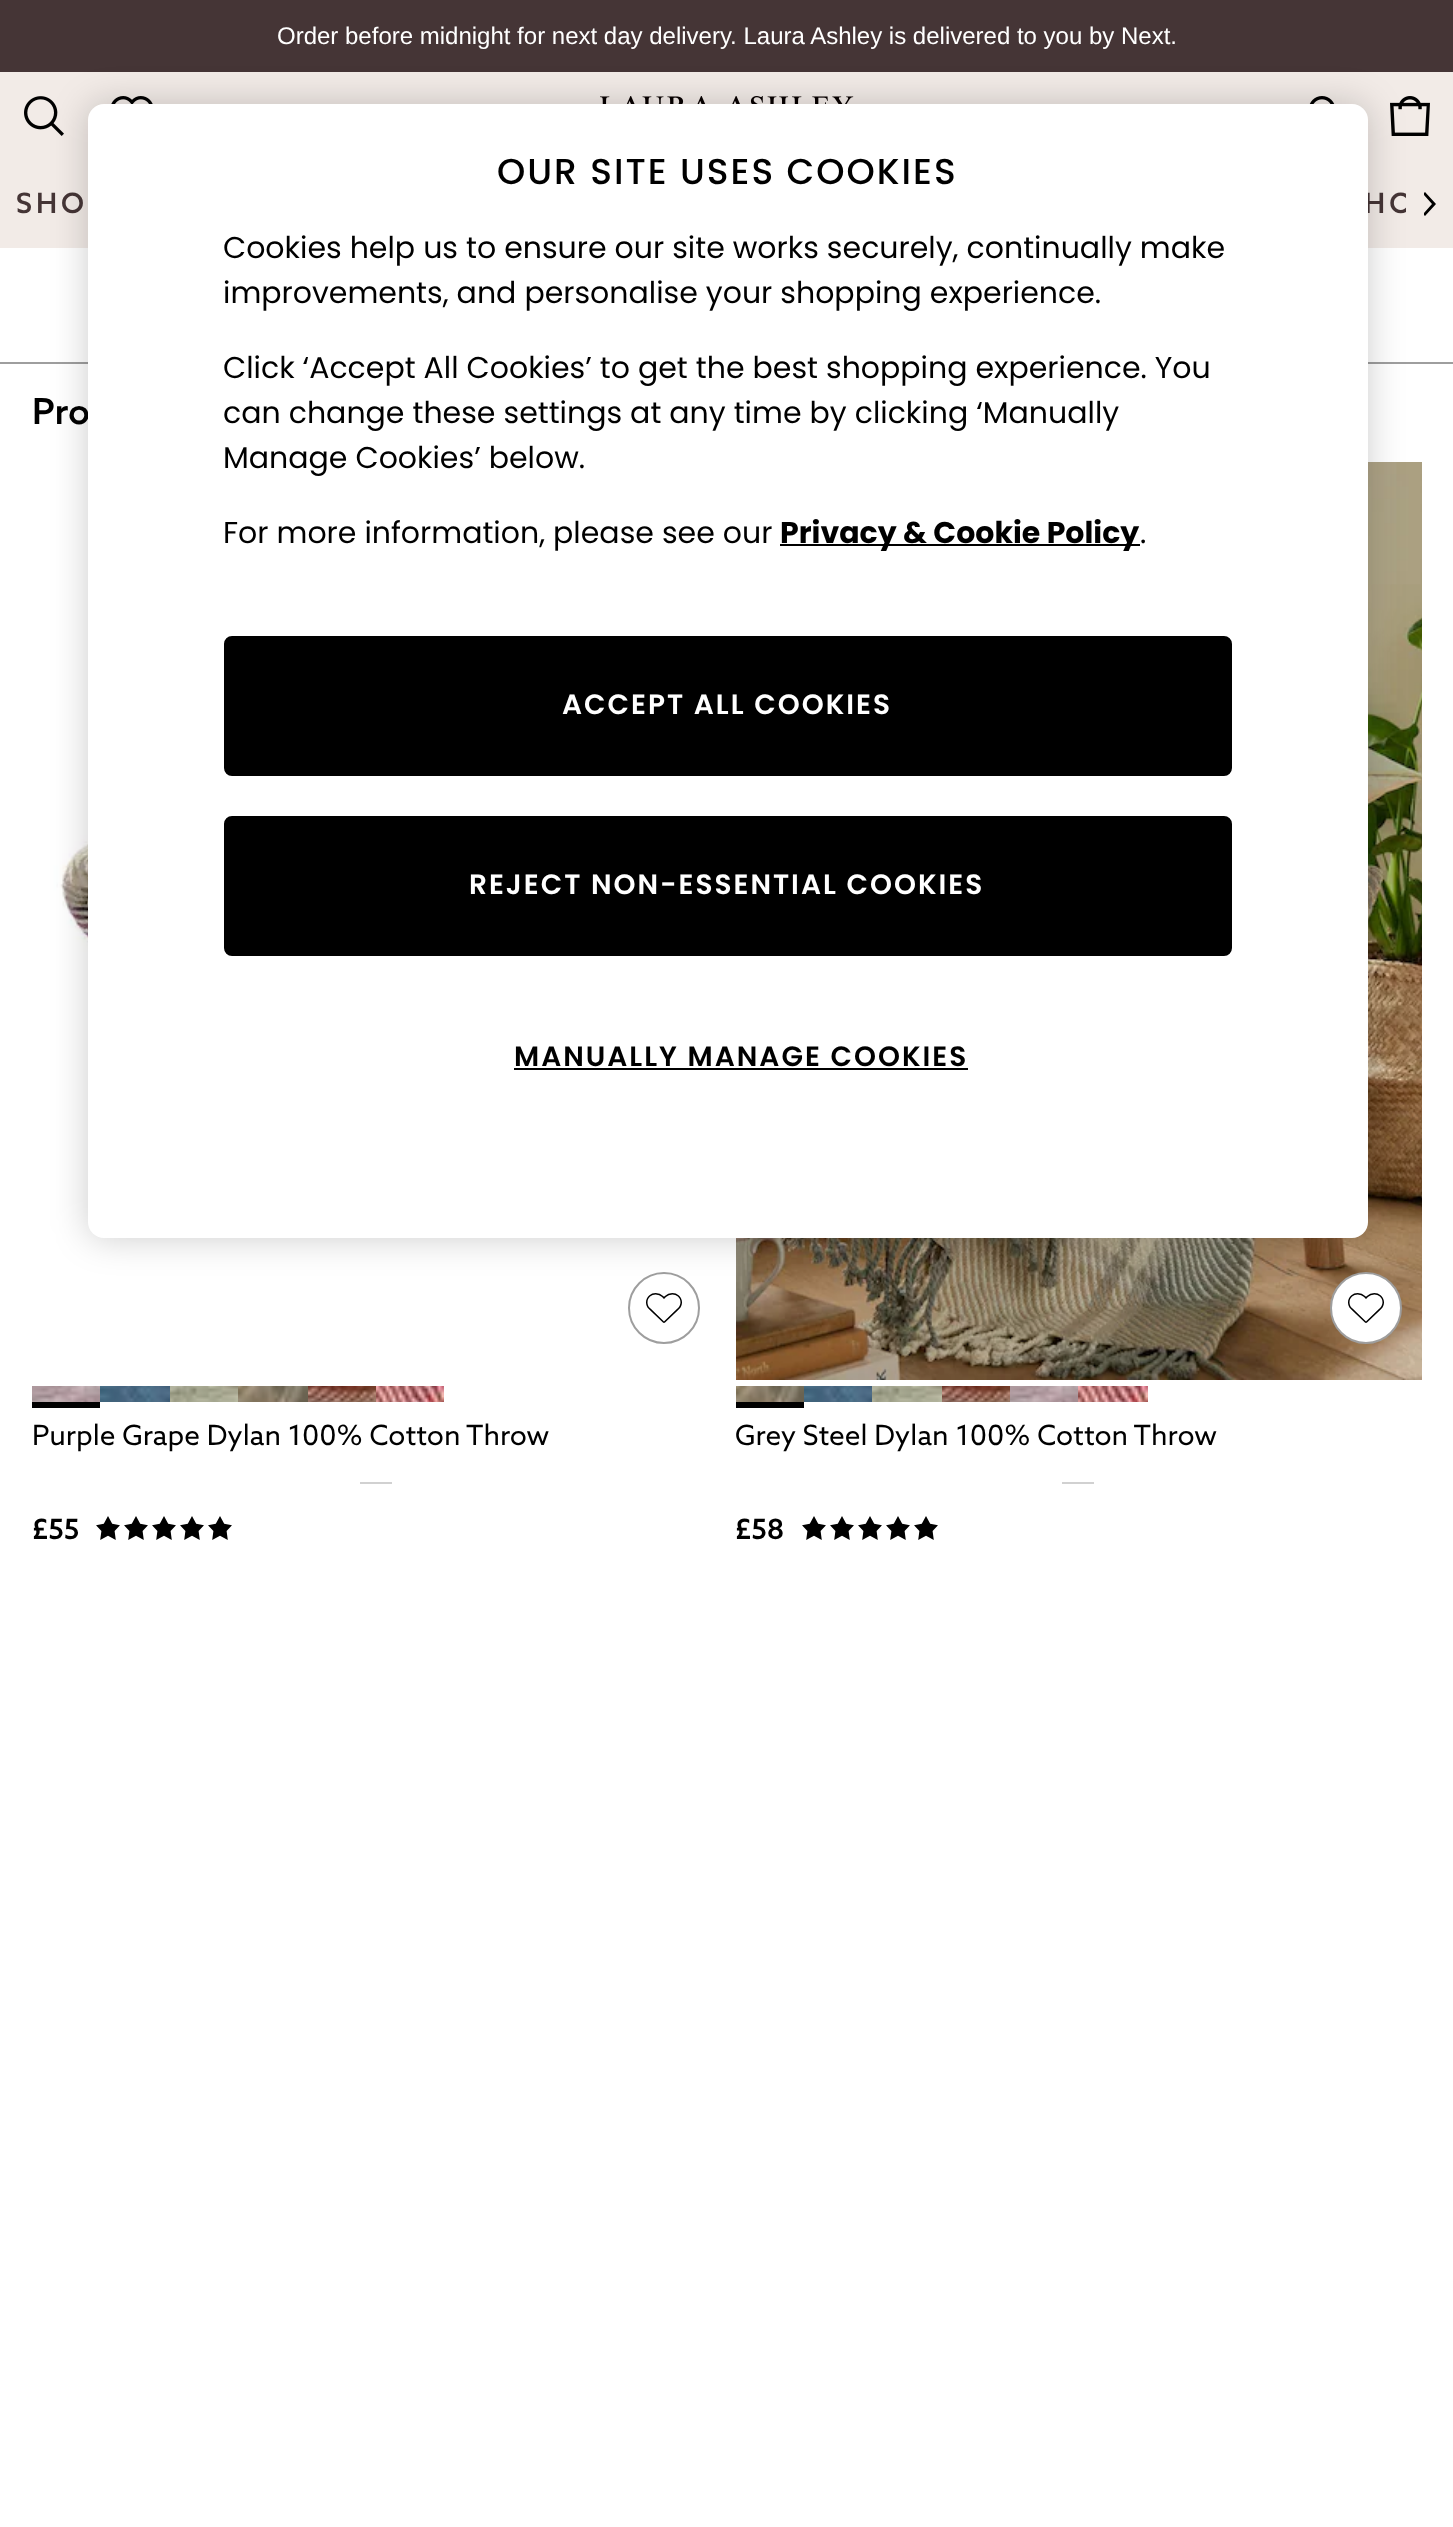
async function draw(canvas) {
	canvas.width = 1453;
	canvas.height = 2527;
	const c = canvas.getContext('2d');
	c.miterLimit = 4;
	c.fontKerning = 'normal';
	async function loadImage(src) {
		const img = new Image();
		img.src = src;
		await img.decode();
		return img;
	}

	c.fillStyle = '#fff';
	c.fillRect(0, 0, 1453, 2527);
	c.fillStyle = '#453536';
	c.fillRect(0, 0, 1453, 72);
	c.font = '24px Liberation Sans';
	c.fillStyle = '#fff';
	c.fillText('Order before midnight for next day delivery. Laura Ashley is delivered to you by Next.', 277, 44);
	c.fillStyle = '#f2ebe7';
	c.fillRect(0, 72, 1453, 176);
	c.drawImage(await loadImage('img1.png'), 24, 96, 40, 40);
	c.drawImage(await loadImage('img2.png'), 111, 96, 42, 8);
	c.drawImage(await loadImage('img3.png'), 600, 96, 254, 8);
	c.drawImage(await loadImage('img4.png'), 1309, 96, 26, 8);
	c.drawImage(await loadImage('img5.png'), 1390, 96, 40, 40);
	c.letterSpacing = '4px';
	c.font = '600 28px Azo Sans';
	c.fillStyle = '#453536';
	c.fillText('SHO', 16, 213);
	c.fillText('HO', 1364, 213);
	c.fillStyle = '#f2ebe7';
	c.fillRect(1406, 193, 6, 19);
	c.save();
	c.beginPath();
	c.rect(1424, 192, 14, 24);
	c.clip();
	c.fillStyle = '#000';
	c.beginPath();
	c.moveTo(1423, 194);
	c.lineTo(1425, 192);
	c.lineTo(1436, 204);
	c.lineTo(1425, 216);
	c.lineTo(1423, 214);
	c.lineTo(1432, 204);
	c.closePath();
	c.fill('evenodd');
	c.restore();
	c.fillStyle = '#9e9e9e';
	c.fillRect(0, 362, 1453, 2);
	c.drawImage(await loadImage('img6.png'), 32, 462, 688, 918);
	c.beginPath();
	c.arc(664, 1308, 35, 0, 2 * Math.PI);
	c.strokeStyle = '#9e9e9e';
	c.lineWidth = 2;
	c.stroke();
	c.drawImage(await loadImage('img15.png'), 736, 462, 686, 918);
	c.fillStyle = '#fff';
	c.beginPath();
	c.arc(1366, 1308, 35, 0, 2 * Math.PI);
	c.fill();
	c.stroke();
	c.fillStyle = '#00000033';
	c.filter = 'blur(18px)';
	c.beginPath();
	c.roundRect(88, 104, 1280, 1134, 16);
	c.fill();
	c.filter = 'none';
	c.letterSpacing = '0px';
	c.font = '600 36px Azo Sans';
	c.fillStyle = '#000';
	c.fillText('Pro', 32, 424);
	c.fillStyle = '#fff';
	c.beginPath();
	c.roundRect(88, 104, 1280, 1134, 16);
	c.fill();
	c.letterSpacing = '2px';
	c.font = '500 36px Poppins';
	c.fillStyle = '#000';
	c.fillText('OUR SITE USES COOKIES', 497, 184);
	c.letterSpacing = '0px';
	c.font = '30px Poppins';
	for (const [text, x, y] of [
		['Cookies help us to ensure our site works securely, continually make', 223, 258],
		['improvements, and personalise your shopping experience.', 223, 303],
		['Click ‘Accept All Cookies’ to get the best shopping experience. You', 223, 378],
		['can change these settings at any time by clicking ‘Manually', 223, 423],
		['Manage Cookies’ below.', 223, 468],
		['For more information, please see our', 223, 543],
	]) {
		c.fillText(text, x, y);
	}
	c.fillRect(780, 544, 360, 2);
	c.font = 'bold 30px Poppins';
	c.fillText('Privacy & Cookie Policy', 780, 543);
	c.font = '30px Poppins';
	c.fillText('.', 1140, 543);
	c.beginPath();
	c.roundRect(225, 637, 1006, 138, 7);
	c.fill();
	c.strokeStyle = '#000';
	c.stroke();
	c.letterSpacing = '2px';
	c.font = '600 28px Poppins';
	c.fillStyle = '#fff';
	c.fillText('ACCEPT ALL COOKIES', 562, 714);
	c.fillStyle = '#000';
	c.beginPath();
	c.roundRect(225, 817, 1006, 138, 7);
	c.fill();
	c.stroke();
	c.fillStyle = '#fff';
	c.fillText('REJECT NON-ESSENTIAL COOKIES', 469, 894);
	c.fillStyle = '#000';
	c.fillText('MANUALLY MANAGE COOKIES', 514, 1066);
	c.fillRect(514, 1068, 454, 2);
	c.drawImage(await loadImage('img7.png'), 646, 1293, 36, 30);
	c.fillRect(32, 1402, 68, 6);
	c.drawImage(await loadImage('img8.png'), 32, 1386, 68, 16);
	c.drawImage(await loadImage('img9.png'), 100, 1386, 70, 16);
	c.drawImage(await loadImage('img10.png'), 170, 1386, 68, 16);
	c.drawImage(await loadImage('img11.png'), 238, 1386, 70, 16);
	c.drawImage(await loadImage('img12.png'), 308, 1386, 68, 16);
	c.drawImage(await loadImage('img13.png'), 376, 1386, 68, 16);
	c.letterSpacing = '0px';
	c.font = '28px "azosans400"';
	c.fillText('Purple Grape Dylan 100% Cotton Throw', 32, 1445);
	c.fillStyle = '#d1d1d1';
	c.fillRect(360, 1482, 32, 2);
	c.font = '600 28px Azo Sans';
	c.fillStyle = '#000';
	c.fillText('£55', 32, 1539);
	c.drawImage(await loadImage('img14.png'), 96, 1516, 24, 24);
	c.drawImage(await loadImage('img14.png'), 124, 1516, 24, 24);
	c.drawImage(await loadImage('img14.png'), 152, 1516, 24, 24);
	c.drawImage(await loadImage('img14.png'), 180, 1516, 24, 24);
	c.drawImage(await loadImage('img14.png'), 208, 1516, 24, 24);
	c.drawImage(await loadImage('img7.png'), 1348, 1293, 36, 30);
	c.fillRect(736, 1402, 68, 6);
	c.drawImage(await loadImage('img16.png'), 736, 1386, 68, 16);
	c.drawImage(await loadImage('img17.png'), 804, 1386, 68, 16);
	c.drawImage(await loadImage('img18.png'), 872, 1386, 70, 16);
	c.drawImage(await loadImage('img12.png'), 942, 1386, 68, 16);
	c.drawImage(await loadImage('img8.png'), 1010, 1386, 68, 16);
	c.drawImage(await loadImage('img19.png'), 1078, 1386, 70, 16);
	c.font = '28px "azosans400"';
	c.fillText('Grey Steel Dylan 100% Cotton Throw', 735, 1445);
	c.fillStyle = '#d1d1d1';
	c.fillRect(1062, 1482, 32, 2);
	c.font = '600 28px Azo Sans';
	c.fillStyle = '#000';
	c.fillText('£58', 735, 1539);
	c.drawImage(await loadImage('img14.png'), 802, 1516, 24, 24);
	c.drawImage(await loadImage('img14.png'), 830, 1516, 24, 24);
	c.drawImage(await loadImage('img14.png'), 858, 1516, 24, 24);
	c.drawImage(await loadImage('img14.png'), 886, 1516, 24, 24);
	c.drawImage(await loadImage('img14.png'), 914, 1516, 24, 24);
}

draw(document.querySelector('canvas'));
